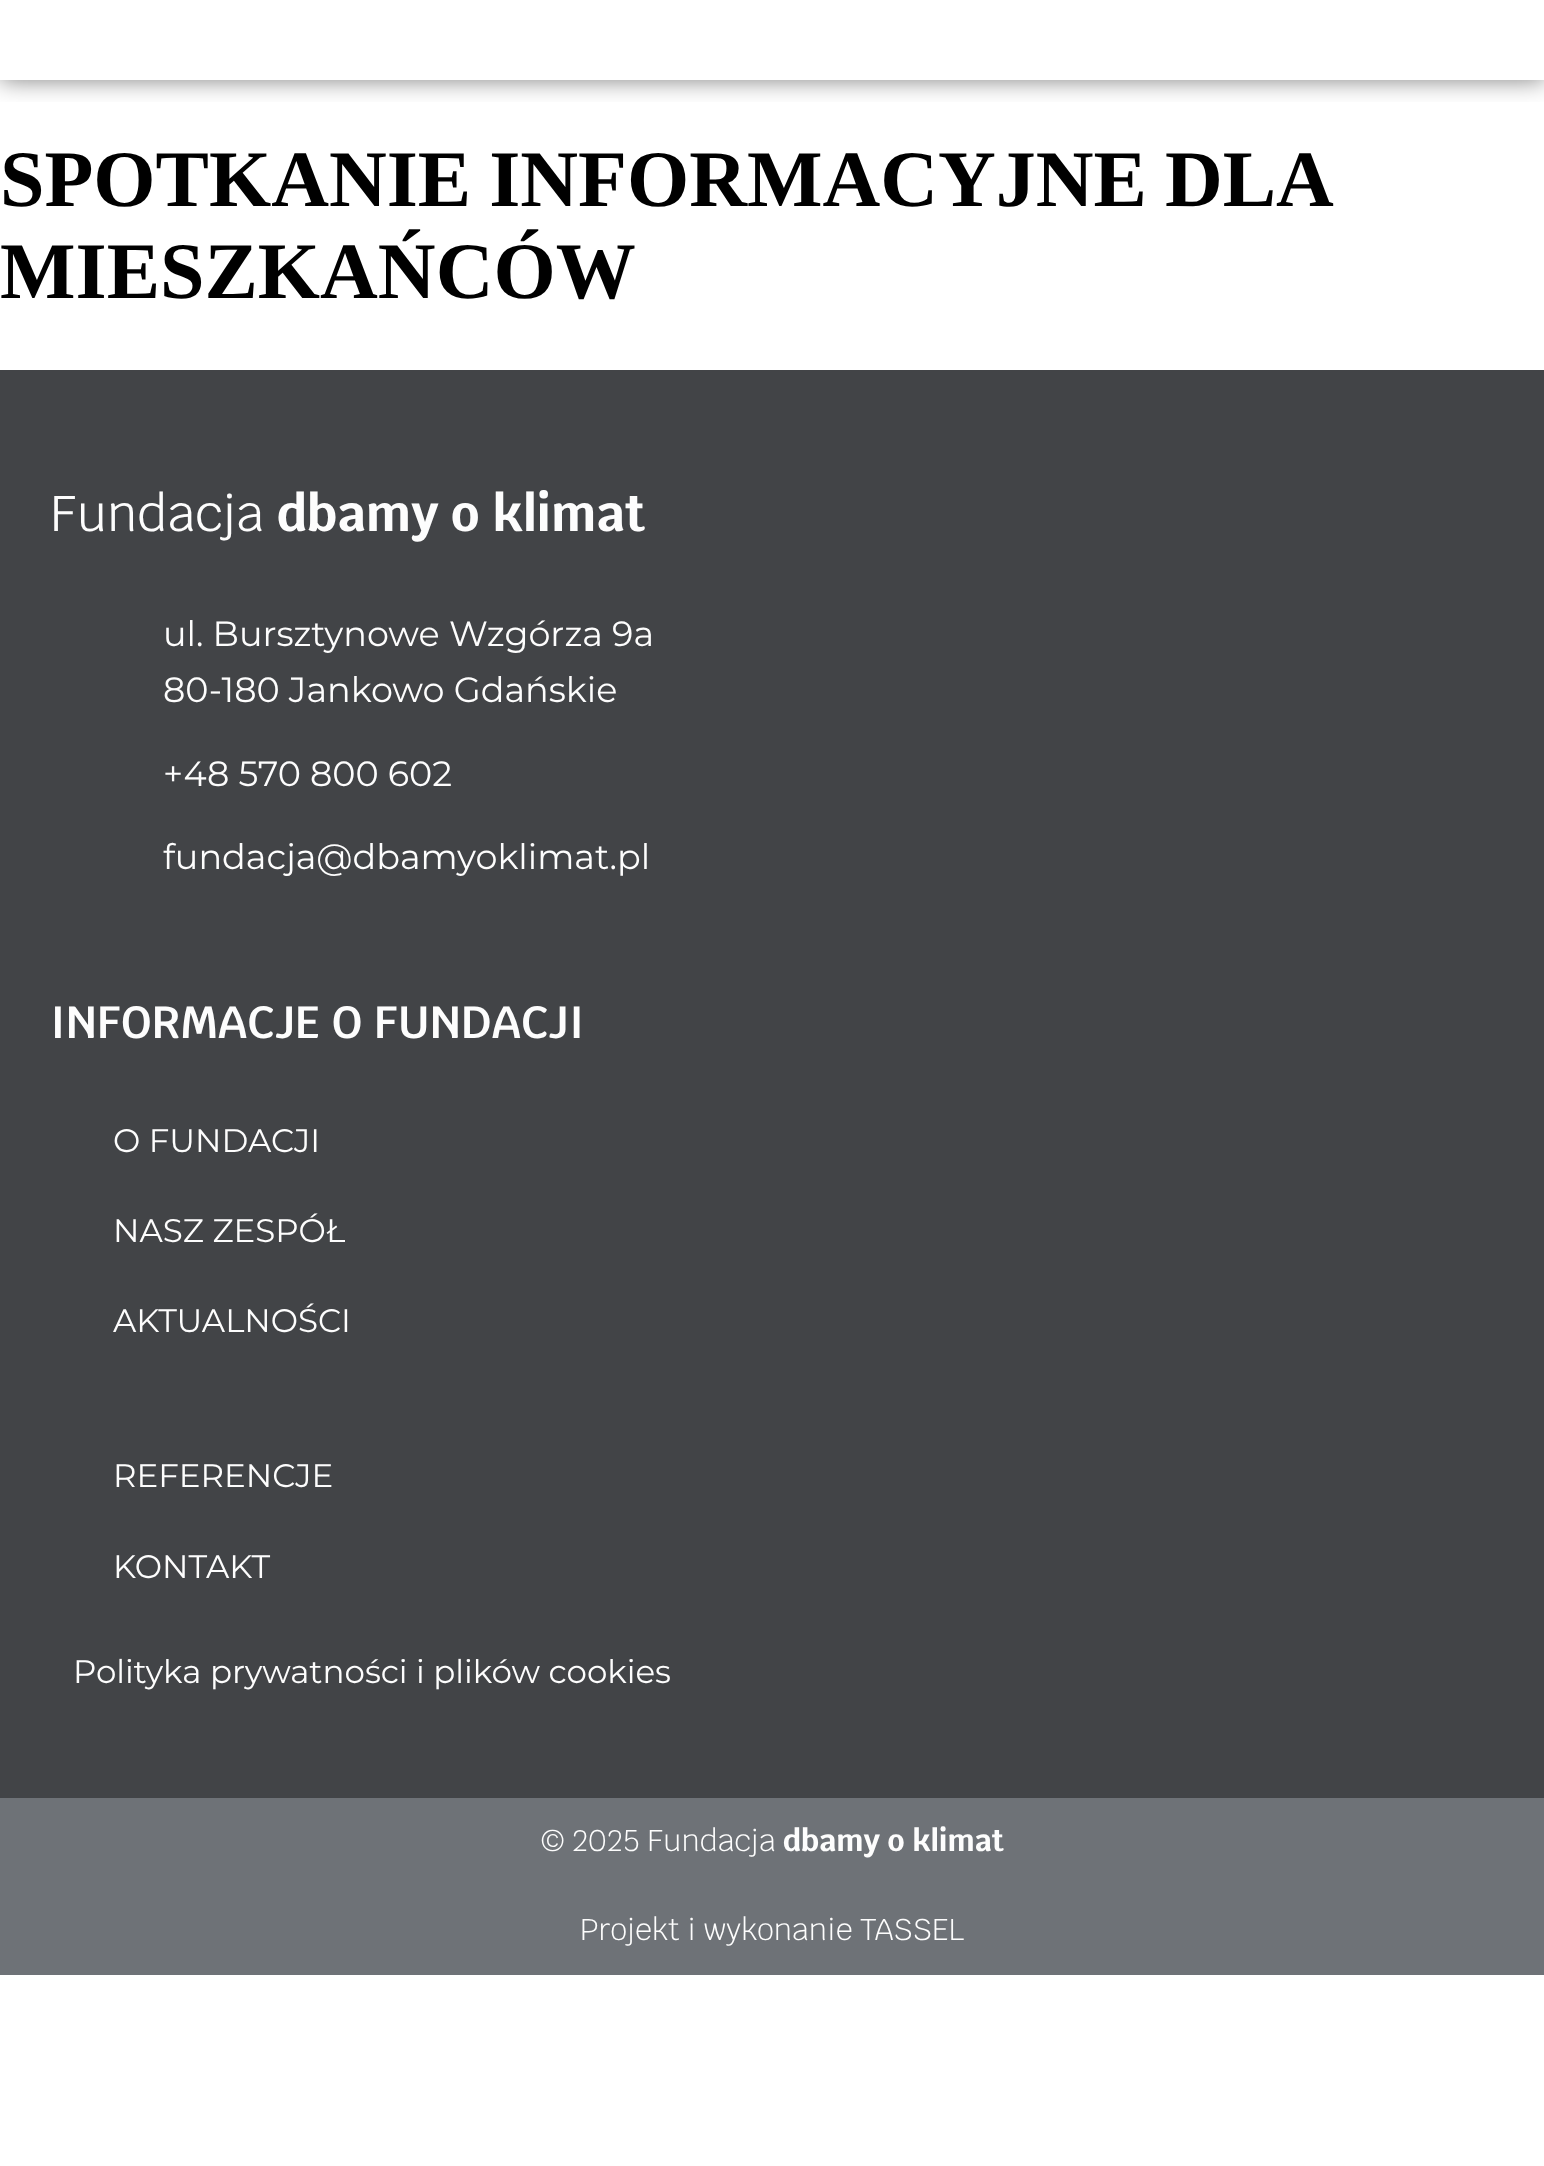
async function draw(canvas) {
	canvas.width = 1544;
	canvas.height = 2166;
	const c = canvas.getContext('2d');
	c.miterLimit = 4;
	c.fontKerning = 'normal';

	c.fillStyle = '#fff';
	c.fillRect(0, 0, 1544, 2166);
	c.save();
	c.beginPath();
	c.rect(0, 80, 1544, 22);
	c.clip();
	c.fillStyle = '#00000080';
	c.filter = 'blur(12.5px)';
	c.beginPath();
	c.rect(0, 0, 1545, 80);
	c.fill();
	c.filter = 'none';
	c.restore();
	c.wordSpacing = '-2px';
	c.font = 'bold 80px Liberation Serif';
	c.fillStyle = '#000';
	c.fillText('SPOTKANIE INFORMACYJNE DLA', 0, 206);
	c.wordSpacing = '0px';
	c.fillText('MIESZKAŃCÓW', 0, 298);
	c.fillStyle = '#424447';
	c.fillRect(0, 370, 1544, 1428);
	c.font = '50px Krub';
	c.fillStyle = '#fdfdfd';
	c.fillText('Fundacja', 50, 531);
	c.font = 'bold 50px Krub';
	c.fillText('dbamy o klimat', 277, 531);
	c.font = '35px Montserrat';
	for (const [text, x, y] of [
		['ul. Bursztynowe Wzgórza 9a', 163, 646],
		['80-180 Jankowo Gdańskie', 163, 702],
		['+48 570 800 602', 163, 786],
		['fundacja@dbamyoklimat.pl', 163, 869],
	]) {
		c.fillText(text, x, y);
	}
	c.font = '600 45px Krub';
	c.fillText('INFORMACJE O FUNDACJI', 50, 1038);
	c.font = '32.5px Montserrat';
	for (const [text, x, y] of [
		['O FUNDACJI', 113, 1152],
		['NASZ ZESPÓŁ', 113, 1242],
		['AKTUALNOŚCI', 113, 1332],
		['REFERENCJE', 113, 1487],
		['KONTAKT', 113, 1578],
		['Polityka prywatności i plików cookies', 73, 1683],
	]) {
		c.fillText(text, x, y);
	}
	c.fillStyle = '#6e7277';
	c.fillRect(0, 1798, 1544, 177);
	c.font = '300 30px Krub';
	c.fillStyle = '#fdfdfd';
	c.fillText('© 2025 Fundacja', 541, 1851);
	c.font = 'bold 30px Krub';
	c.fillText('dbamy o klimat', 783, 1851);
	c.font = '300 30px Krub';
	c.fillText('Projekt i wykonanie TASSEL', 580, 1940);
}

draw(document.querySelector('canvas'));
